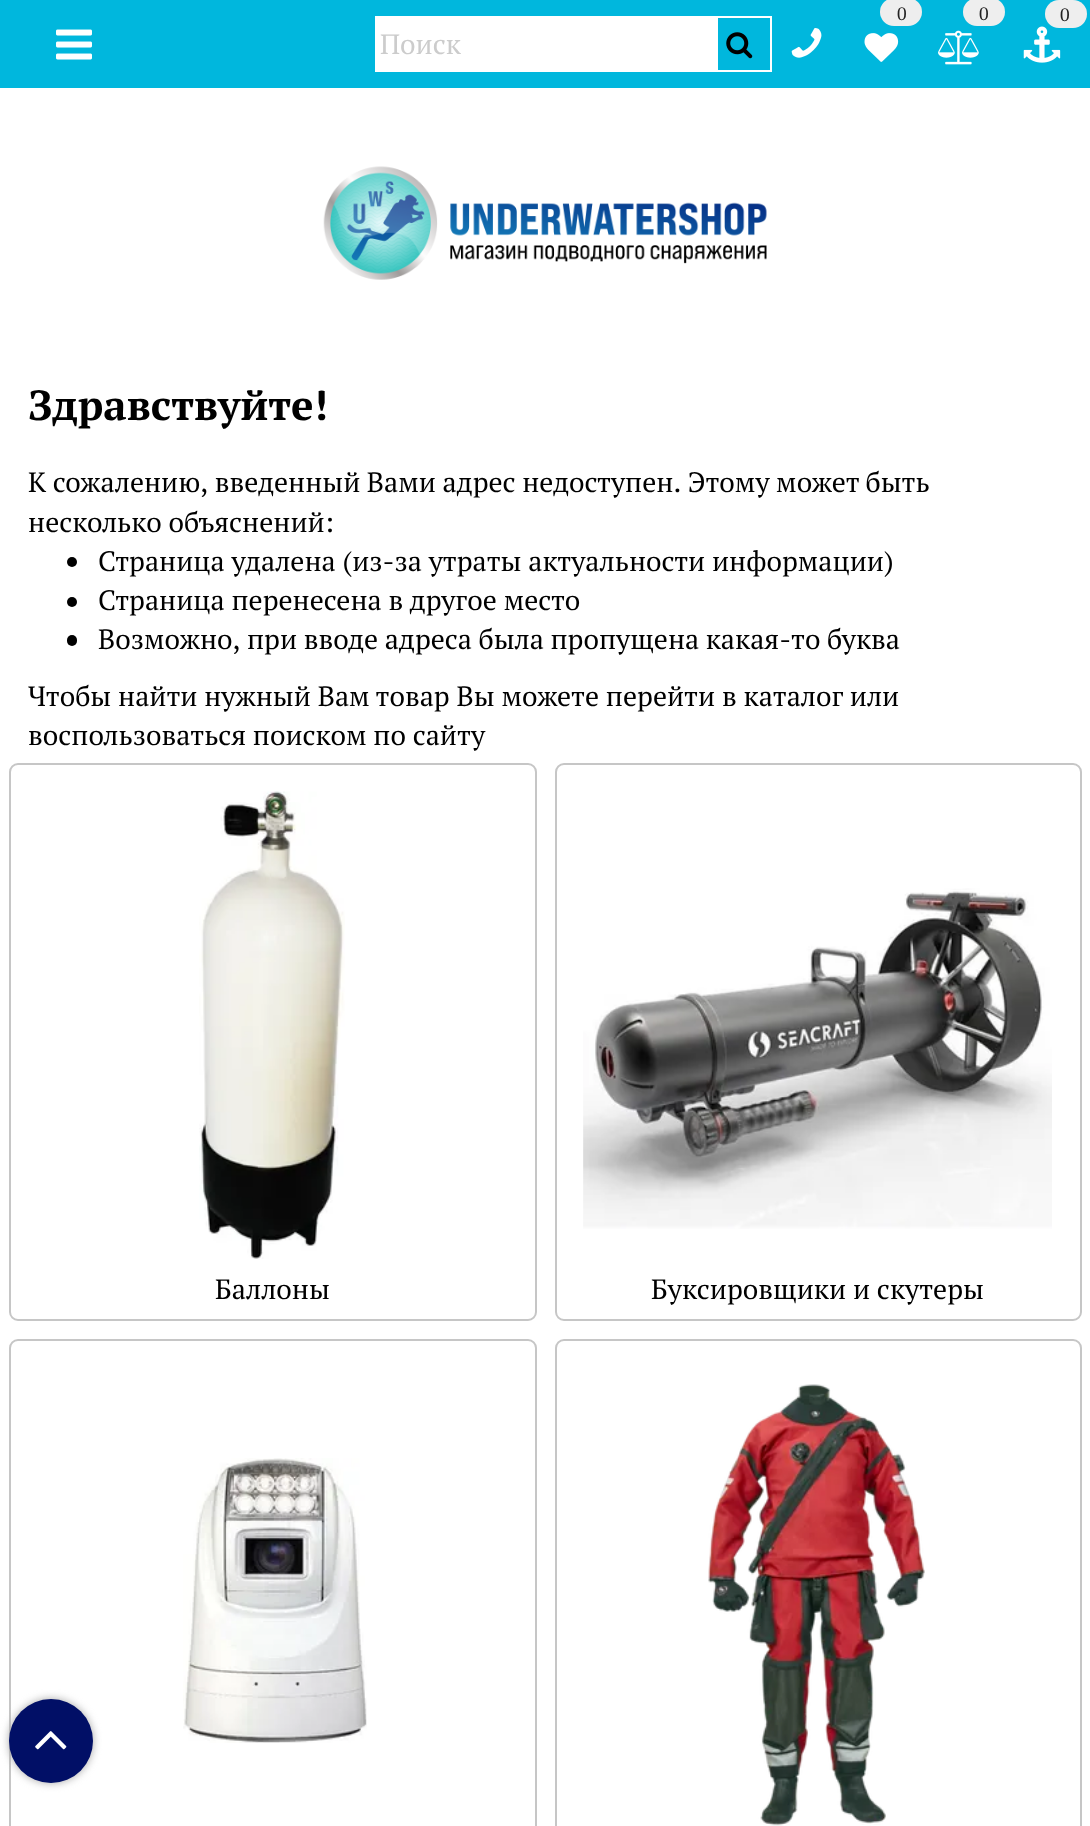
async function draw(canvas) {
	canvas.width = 1090;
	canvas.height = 1826;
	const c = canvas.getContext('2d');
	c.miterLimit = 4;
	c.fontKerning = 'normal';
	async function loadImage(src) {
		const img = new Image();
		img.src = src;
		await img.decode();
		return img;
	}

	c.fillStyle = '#fff';
	c.fillRect(0, 0, 1090, 1826);
	c.fillStyle = '#00b7dd';
	c.fillRect(0, 0, 1090, 88);
	c.drawImage(await loadImage('img1.png'), 56, 29, 36, 31);
	c.fillStyle = '#eee';
	c.beginPath();
	c.roundRect(880, -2, 42, 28, 14);
	c.fill();
	c.font = '18px PT Serif';
	c.fillStyle = '#222';
	c.fillText('0', 897, 20);
	c.drawImage(await loadImage('img2.png'), 864, 33, 35, 29);
	c.fillStyle = '#eee';
	c.beginPath();
	c.roundRect(963, -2, 42, 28, 14);
	c.fill();
	c.fillStyle = '#222';
	c.fillText('0', 979, 20);
	c.drawImage(await loadImage('img3.png'), 938, 30, 41, 35);
	c.drawImage(await loadImage('img4.png'), 1023, 26, 38, 37);
	c.fillStyle = '#eee';
	c.beginPath();
	c.roundRect(1045, 0, 42, 28, 14);
	c.fill();
	c.fillStyle = '#222';
	c.fillText('0', 1060, 21);
	c.strokeStyle = '#fff';
	c.lineWidth = 2;
	c.strokeRect(376, 17, 395, 54);
	c.fillStyle = '#fff';
	c.fillRect(377, 18, 341, 52);
	c.font = '28px PT Serif';
	c.fillStyle = '#ccc';
	c.fillText('Поиск', 380, 54);
	c.drawImage(await loadImage('img5.png'), 726, 32, 27, 27);
	c.drawImage(await loadImage('img6.png'), 791, 28, 31, 30);
	c.drawImage(await loadImage('img7.png'), 323, 166, 444, 114);
	c.font = 'bold 42px PT Serif';
	c.fillStyle = '#000';
	c.fillText('Здравствуйте!', 28, 420);
	c.wordSpacing = '-0.25px';
	c.font = '28px PT Serif';
	c.fillText('К сожалению, введенный Вами адрес недоступен. Этому может быть', 28, 492);
	c.wordSpacing = '0px';
	c.fillText('несколько объяснений:', 28, 532);
	c.beginPath();
	c.arc(72, 562, 5, 0, 2 * Math.PI);
	c.fill();
	c.fillText('Страница удалена (из-за утраты актуальности информации)', 98, 571);
	c.beginPath();
	c.arc(72, 602, 5, 0, 2 * Math.PI);
	c.fill();
	c.fillText('Страница перенесена в другое место', 98, 610);
	c.beginPath();
	c.roundRect(67, 635, 10, 11, 5);
	c.fill();
	c.wordSpacing = '-0.25px';
	c.fillText('Возможно, при вводе адреса была пропущена какая-то буква', 98, 649);
	c.wordSpacing = '0px';
	c.fillText('Чтобы найти нужный Вам товар Вы можете перейти в каталог или', 28, 706);
	c.fillText('воспользоваться поиском по сайту', 28, 745);
	c.beginPath();
	c.roundRect(10, 764, 526, 556, 8);
	c.strokeStyle = '#c6c6c6';
	c.stroke();
	c.drawImage(await loadImage('img8.png'), 199, 791, 146, 468);
	c.fillText('Баллоны', 215, 1299);
	c.beginPath();
	c.roundRect(556, 764, 525, 556, 8);
	c.stroke();
	c.drawImage(await loadImage('img9.png'), 583, 888, 469, 341);
	c.fillText('Буксировщики и скутеры', 651, 1299);
	c.beginPath();
	c.roundRect(10, 1340, 526, 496, 8);
	c.stroke();
	c.drawImage(await loadImage('img10.png'), 183, 1458, 184, 285);
	c.beginPath();
	c.roundRect(556, 1340, 525, 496, 8);
	c.stroke();
	c.drawImage(await loadImage('img11.png'), 708, 1384, 217, 442);
	c.fillStyle = '#a6a6a6';
	c.filter = 'blur(4.5px)';
	c.beginPath();
	c.roundRect(9, 1699, 84, 84, 42);
	c.fill();
	c.filter = 'none';
	c.fillStyle = '#010f66';
	c.beginPath();
	c.arc(51, 1741, 42, 0, 2 * Math.PI);
	c.fill();
	c.drawImage(await loadImage('img12.png'), 35, 1731, 32, 19);
}

draw(document.querySelector('canvas'));
